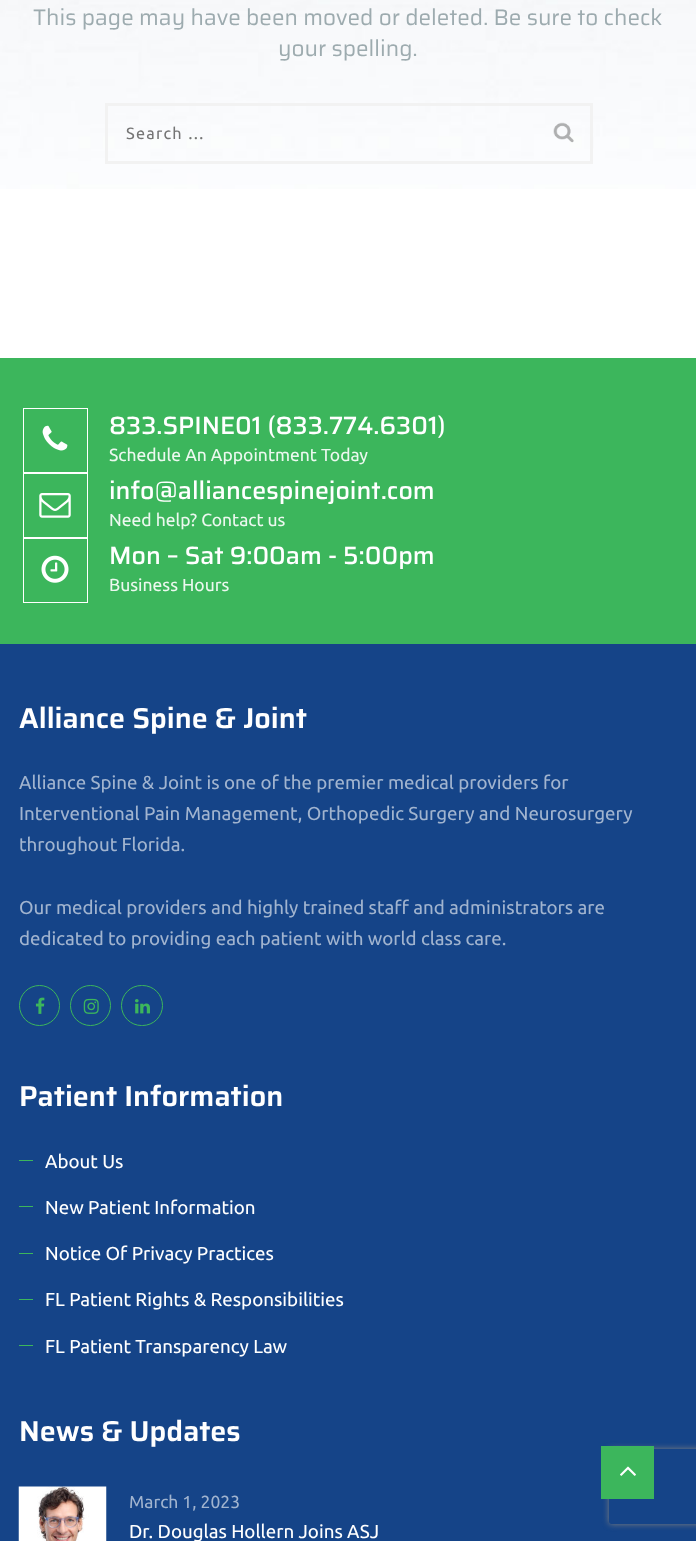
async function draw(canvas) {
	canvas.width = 696;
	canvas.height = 1541;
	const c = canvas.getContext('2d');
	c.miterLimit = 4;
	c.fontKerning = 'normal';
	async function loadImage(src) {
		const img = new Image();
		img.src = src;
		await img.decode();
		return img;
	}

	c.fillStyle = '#fff';
	c.fillRect(0, 0, 696, 1541);
	c.drawImage(await loadImage('img1.png'), 0, 0, 696, 189);
	c.font = '22.5px Saira';
	c.fillStyle = '#9dabaf';
	c.fillText('This page may have been moved or deleted. Be sure to check', 33, 25);
	c.fillText('your spelling.', 278, 56);
	c.strokeStyle = '#f2f2f2';
	c.lineWidth = 3;
	c.strokeRect(106.5, 104.5, 485, 58);
	c.letterSpacing = '1.25px';
	c.font = '16.25px Ubuntu';
	c.fillStyle = '#757575';
	c.fillText('Search …', 126, 139);
	c.drawImage(await loadImage('img2.png'), 553, 122, 21, 21);
	c.fillStyle = '#3cb65c';
	c.fillRect(0, 358, 696, 286);
	c.strokeStyle = '#fff';
	c.lineWidth = 1;
	c.strokeRect(23.5, 408.5, 64, 64);
	c.drawImage(await loadImage('img3.png'), 42, 425, 26, 26);
	c.letterSpacing = '0px';
	c.font = '500 25px Saira';
	c.fillStyle = '#fff';
	c.fillText('833.SPINE01 (833.774.6301)', 109, 434);
	c.font = '17.5px Ubuntu';
	c.fillStyle = '#ecf8ef';
	c.fillText('Schedule An Appointment Today', 109, 461);
	c.strokeRect(23.5, 473.5, 64, 64);
	c.drawImage(await loadImage('img4.png'), 39, 493, 32, 25);
	c.font = '500 25px Saira';
	c.fillStyle = '#fff';
	c.fillText('info@alliancespinejoint.com', 109, 499);
	c.font = '17.5px Ubuntu';
	c.fillStyle = '#ecf8ef';
	c.fillText('Need help? Contact us', 109, 526);
	c.strokeRect(23.5, 538.5, 64, 64);
	c.drawImage(await loadImage('img5.png'), 41, 555, 28, 28);
	c.font = '500 25px Saira';
	c.fillStyle = '#fff';
	c.fillText('Mon – Sat 9:00am - 5:00pm', 109, 564);
	c.font = '17.5px Ubuntu';
	c.fillStyle = '#ecf8ef';
	c.fillText('Business Hours', 109, 591);
	c.fillStyle = '#154488';
	c.fillRect(0, 644, 696, 897);
	c.font = '600 28.75px Saira';
	c.fillStyle = '#fff';
	c.fillText('Alliance Spine & Joint', 19, 728);
	c.font = '18.75px Ubuntu';
	c.fillStyle = '#a1b4cf';
	for (const [text, x, y] of [
		['Alliance Spine & Joint is one of the premier medical providers for', 19, 789],
		['Interventional Pain Management, Orthopedic Surgery and Neurosurgery', 19, 820],
		['throughout Florida.', 19, 851],
		['Our medical providers and highly trained staff and administrators are', 19, 914],
		['dedicated to providing each patient with world class care.', 19, 945],
	]) {
		c.fillText(text, x, y);
	}
	c.beginPath();
	c.arc(39.5, 1005.5, 20, 0, 2 * Math.PI);
	c.strokeStyle = '#3cb65c';
	c.stroke();
	c.drawImage(await loadImage('img6.png'), 35, 997, 10, 17);
	c.beginPath();
	c.arc(90.5, 1005.5, 20, 0, 2 * Math.PI);
	c.stroke();
	c.drawImage(await loadImage('img7.png'), 83, 998, 16, 16);
	c.beginPath();
	c.roundRect(121.5, 985.5, 41, 40, 20);
	c.stroke();
	c.drawImage(await loadImage('img8.png'), 135, 999, 15, 15);
	c.font = '600 28.75px Saira';
	c.fillStyle = '#fff';
	c.fillText('Patient Information', 19, 1106);
	c.fillStyle = '#3cb65c';
	c.fillRect(19, 1160, 14, 1);
	c.font = '18.75px Ubuntu';
	c.fillStyle = '#fff';
	c.fillText('About Us', 45, 1168);
	c.fillStyle = '#3cb65c';
	c.fillRect(19, 1206, 14, 1);
	c.fillStyle = '#fff';
	c.fillText('New Patient Information', 45, 1214);
	c.fillStyle = '#3cb65c';
	c.fillRect(19, 1253, 14, 1);
	c.fillStyle = '#fff';
	c.fillText('Notice Of Privacy Practices', 45, 1260);
	c.fillStyle = '#3cb65c';
	c.fillRect(19, 1299, 14, 1);
	c.fillStyle = '#fff';
	c.fillText('FL Patient Rights & Responsibilities', 45, 1306);
	c.fillStyle = '#3cb65c';
	c.fillRect(19, 1345, 14, 1);
	c.fillStyle = '#fff';
	c.fillText('FL Patient Transparency Law', 45, 1353);
	c.font = '600 28.75px Saira';
	c.fillText('News & Updates', 19, 1441);
	c.drawImage(await loadImage('img9.png'), 18, 1486, 89, 55);
	c.font = '17.5px Ubuntu';
	c.fillStyle = '#a1b4cf';
	c.fillText('March 1, 2023', 129, 1508);
	c.font = '18.75px Ubuntu';
	c.fillStyle = '#fff';
	c.fillText('Dr. Douglas Hollern Joins ASJ', 129, 1538);
	c.save();
	c.beginPath();
	c.moveTo(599, 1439);
	c.lineTo(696, 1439);
	c.lineTo(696, 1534);
	c.lineTo(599, 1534);
	c.closePath();
	c.moveTo(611.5, 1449);
	c.lineTo(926.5, 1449);
	c.bezierCurveTo(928, 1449, 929, 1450, 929, 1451.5);
	c.lineTo(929, 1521.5);
	c.bezierCurveTo(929, 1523, 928, 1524, 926.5, 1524);
	c.lineTo(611.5, 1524);
	c.bezierCurveTo(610, 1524, 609, 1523, 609, 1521.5);
	c.lineTo(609, 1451.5);
	c.bezierCurveTo(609, 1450, 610, 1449, 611.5, 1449);
	c.closePath();
	c.clip('evenodd');
	c.fillStyle = '#808080';
	c.filter = 'blur(3px)';
	c.beginPath();
	c.roundRect(609, 1449, 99, 75, 2.5);
	c.fill();
	c.filter = 'none';
	c.restore();
	c.fillStyle = '#3cb65c';
	c.fillRect(601, 1446, 53, 53);
	c.drawImage(await loadImage('img10.png'), 620, 1466, 16, 10);
}

draw(document.querySelector('canvas'));
